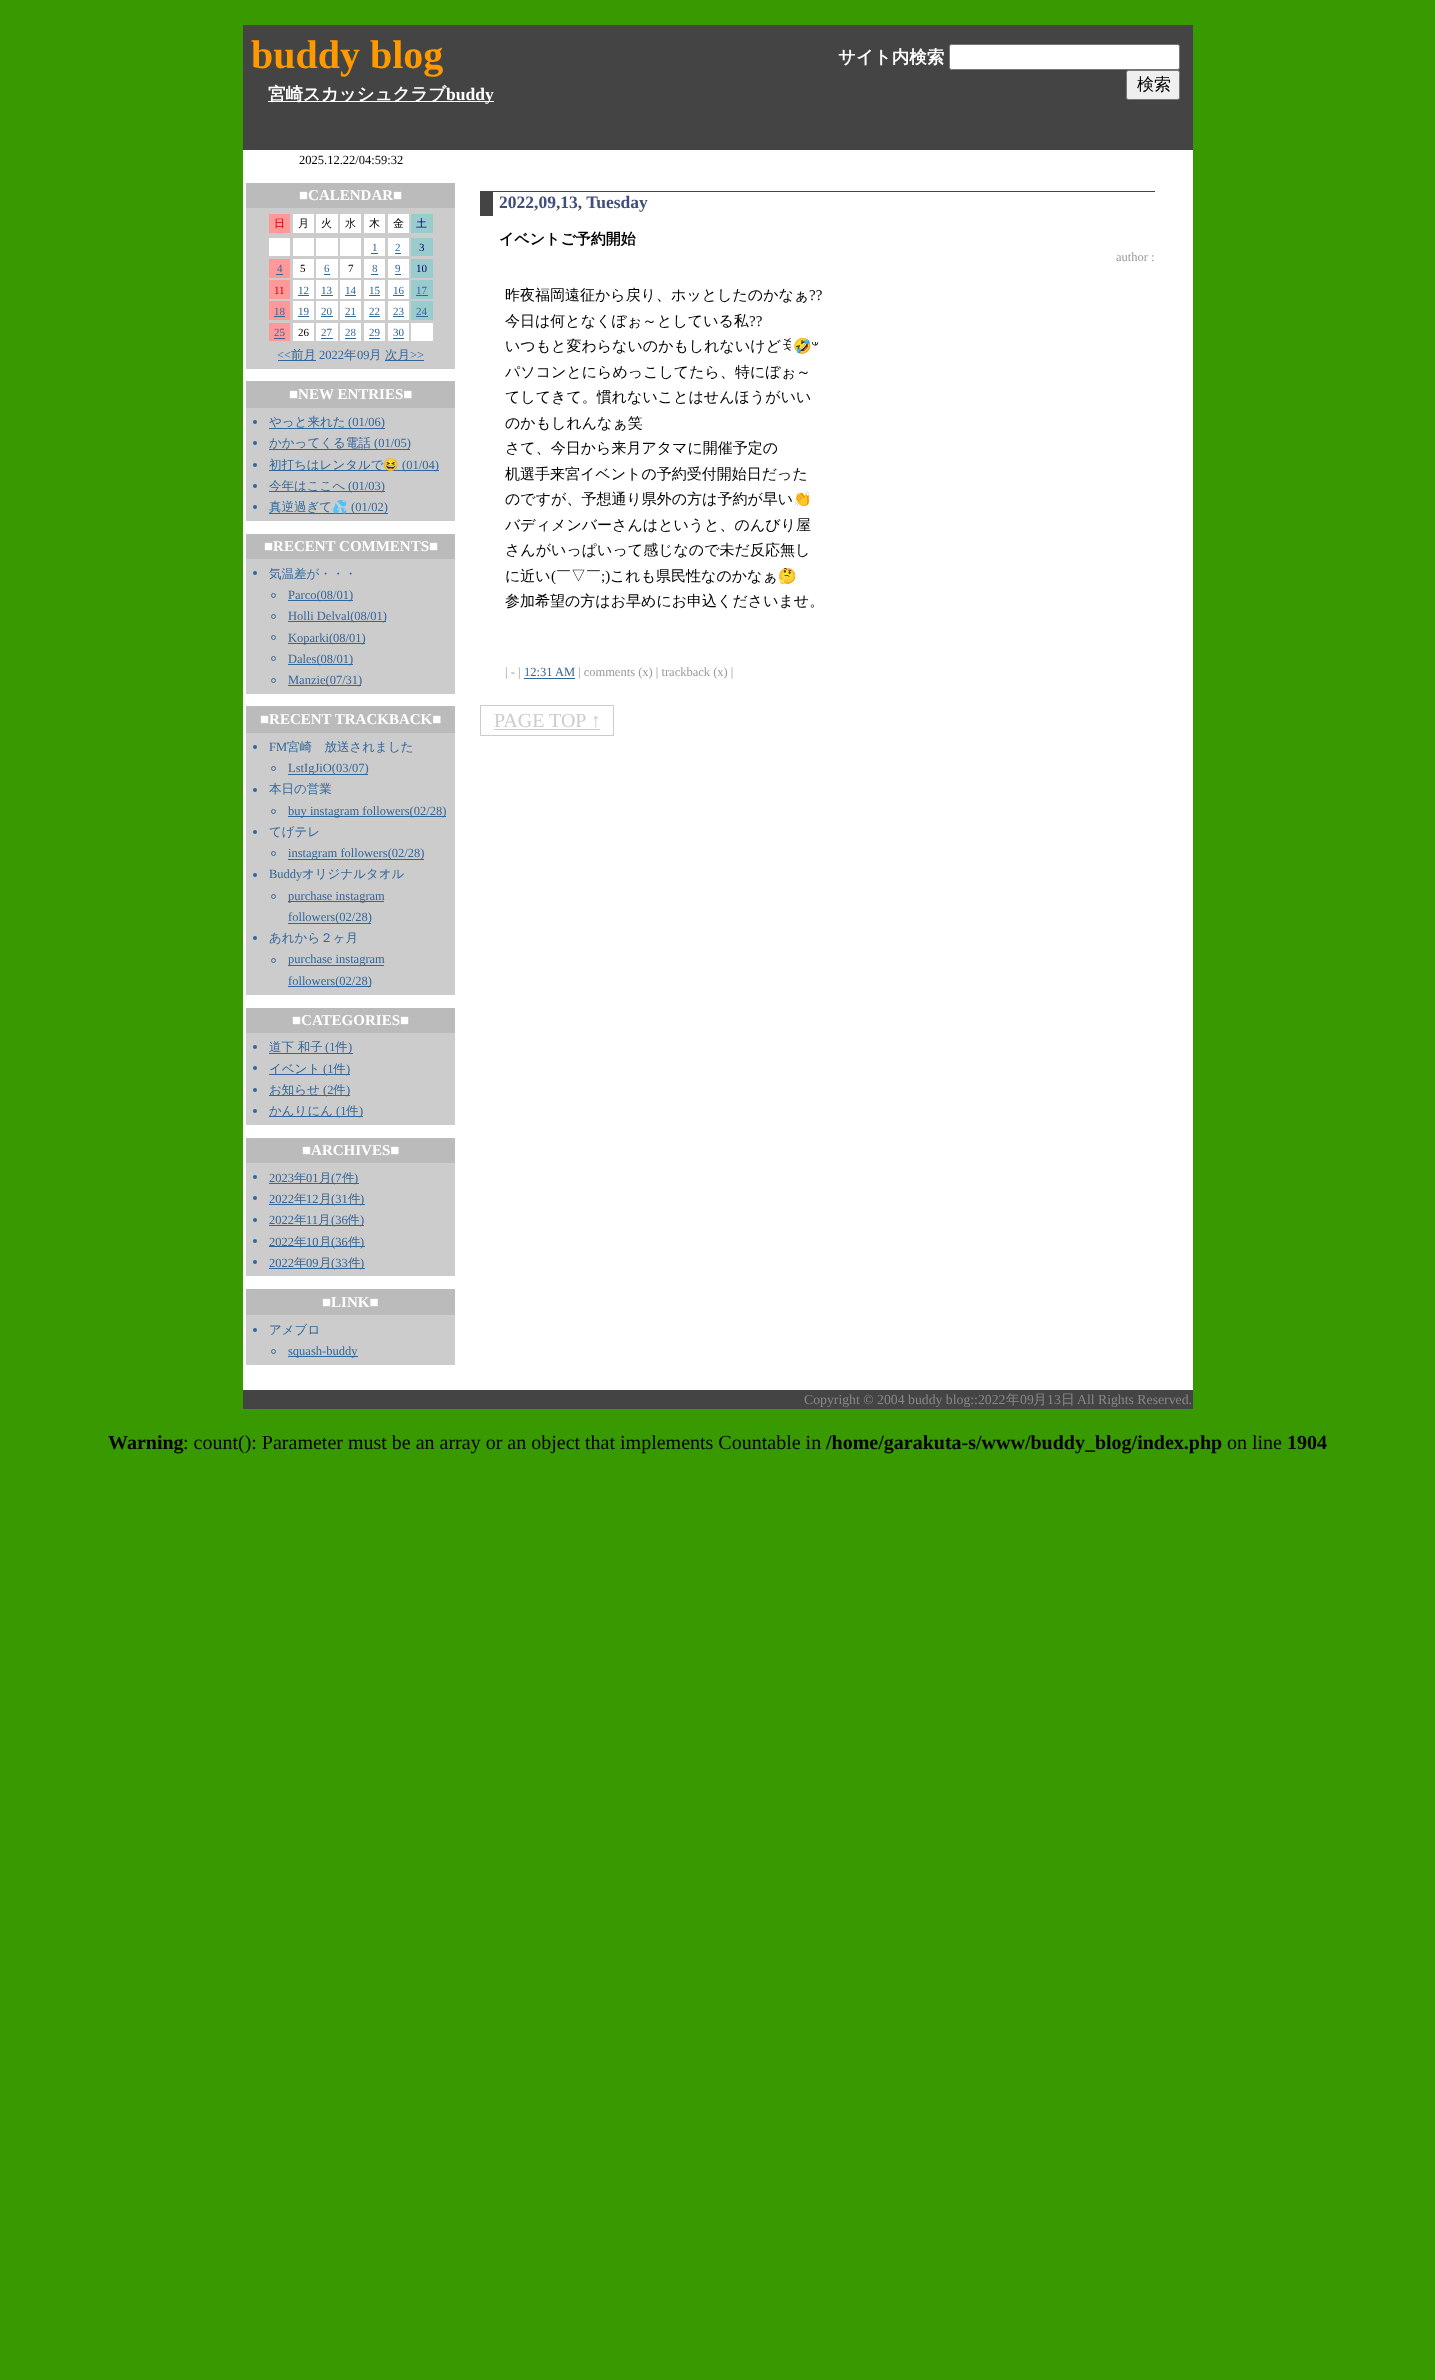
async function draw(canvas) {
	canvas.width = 1435;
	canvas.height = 2380;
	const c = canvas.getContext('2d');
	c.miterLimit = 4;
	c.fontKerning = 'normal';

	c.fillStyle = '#399900';
	c.fillRect(0, 0, 1435, 2380);
	c.fillStyle = '#fff';
	c.fillRect(243, 150, 950, 1240);
	c.fillStyle = '#444';
	c.fillRect(243, 25, 950, 125);
	c.font = 'bold 40px Liberation Serif';
	c.fillStyle = '#f90';
	c.fillText('buddy blog', 251, 68);
	c.fillStyle = '#fff';
	c.fillRect(268, 101, 226, 1);
	c.font = 'bold 17.5px WenQuanYi Zen Hei';
	c.fillText('宮崎スカッシュクラブ', 268, 100);
	c.font = 'bold 17.5px Liberation Serif';
	c.fillText('buddy', 446, 100);
	c.font = 'bold 17.5px WenQuanYi Zen Hei';
	c.fillText('サイト内検索', 838, 63);
	c.beginPath();
	c.roundRect(949.5, 44.5, 230, 25, 2);
	c.fill();
	c.strokeStyle = '#767676';
	c.stroke();
	c.fillStyle = '#efefef';
	c.beginPath();
	c.roundRect(1126.5, 70.5, 53, 29, 2);
	c.fill();
	c.stroke();
	c.font = '500 17px WenQuanYi Zen Hei';
	c.fillStyle = '#000';
	c.fillText('検索', 1137, 90);
	c.font = '12.5px Liberation Serif';
	c.fillText('2025.12.22/04:59:32', 299, 164);
	c.fillStyle = '#bbb';
	c.fillRect(246, 183, 209, 25);
	c.font = 'bold 15px Liberation Serif';
	c.fillStyle = '#fff';
	c.fillText('■CALENDAR■', 299, 200);
	c.fillStyle = '#ccc';
	c.fillRect(246, 208, 209, 161);
	c.fillStyle = '#f99';
	c.fillRect(269, 214, 21, 19);
	c.font = '500 11px WenQuanYi Zen Hei';
	c.fillStyle = '#c00';
	c.fillText('日', 274, 227);
	c.fillStyle = '#fff';
	c.fillRect(293, 214, 21, 19);
	c.fillStyle = '#000';
	c.fillText('月', 298, 227);
	c.fillStyle = '#fff';
	c.fillRect(316, 214, 22, 19);
	c.fillStyle = '#000';
	c.fillText('火', 321, 227);
	c.fillStyle = '#fff';
	c.fillRect(340, 214, 21, 19);
	c.fillStyle = '#000';
	c.fillText('水', 345, 227);
	c.fillStyle = '#fff';
	c.fillRect(364, 214, 21, 19);
	c.fillStyle = '#000';
	c.fillText('木', 369, 227);
	c.fillStyle = '#fff';
	c.fillRect(388, 214, 21, 19);
	c.fillStyle = '#000';
	c.fillText('金', 393, 227);
	c.fillStyle = '#9cc';
	c.fillRect(411, 214, 22, 19);
	c.fillStyle = '#006';
	c.fillText('土', 416, 227);
	for (const [x, y, w, h, color] of [
		[269, 238, 21, 18, '#fff'],
		[293, 238, 21, 18, '#fff'],
		[316, 238, 22, 18, '#fff'],
		[340, 238, 21, 18, '#fff'],
		[364, 238, 21, 18, '#fff'],
	]) {
		c.fillStyle = color;
		c.fillRect(x, y, w, h);
	}
	c.font = '11px Liberation Serif';
	c.fillStyle = '#369';
	c.fillText('1', 372, 251);
	c.fillRect(371, 253, 7, 1);
	c.fillStyle = '#fff';
	c.fillRect(388, 238, 21, 18);
	c.fillStyle = '#369';
	c.fillText('2', 395, 251);
	c.fillRect(395, 253, 6, 1);
	c.fillStyle = '#9cc';
	c.fillRect(411, 238, 22, 18);
	c.fillStyle = '#006';
	c.fillText('3', 419, 251);
	c.fillStyle = '#f99';
	c.fillRect(269, 259, 21, 19);
	c.fillStyle = '#369';
	c.fillText('4', 277, 272);
	c.fillRect(276, 274, 7, 1);
	c.fillStyle = '#fff';
	c.fillRect(293, 259, 21, 19);
	c.fillStyle = '#000';
	c.fillText('5', 300, 272);
	c.fillStyle = '#fff';
	c.fillRect(316, 259, 22, 19);
	c.fillStyle = '#369';
	c.fillText('6', 324, 272);
	c.fillRect(324, 274, 6, 1);
	c.fillStyle = '#fff';
	c.fillRect(340, 259, 21, 19);
	c.fillStyle = '#000';
	c.fillText('7', 348, 272);
	c.fillStyle = '#fff';
	c.fillRect(364, 259, 21, 19);
	c.fillStyle = '#369';
	c.fillText('8', 372, 272);
	c.fillRect(371, 274, 7, 1);
	c.fillStyle = '#fff';
	c.fillRect(388, 259, 21, 19);
	c.fillStyle = '#369';
	c.fillText('9', 395, 272);
	c.fillRect(395, 274, 6, 1);
	c.fillStyle = '#9cc';
	c.fillRect(411, 259, 22, 19);
	c.fillStyle = '#006';
	c.fillText('10', 416, 272);
	c.fillStyle = '#f99';
	c.fillRect(269, 280, 21, 19);
	c.fillStyle = '#c00';
	c.fillText('11', 274, 294);
	c.fillStyle = '#fff';
	c.fillRect(293, 280, 21, 19);
	c.fillStyle = '#369';
	c.fillText('12', 298, 294);
	c.fillRect(298, 295, 11, 1);
	c.fillStyle = '#fff';
	c.fillRect(316, 280, 22, 19);
	c.fillStyle = '#369';
	c.fillText('13', 321, 294);
	c.fillRect(321, 295, 12, 1);
	c.fillStyle = '#fff';
	c.fillRect(340, 280, 21, 19);
	c.fillStyle = '#369';
	c.fillText('14', 345, 294);
	c.fillRect(345, 295, 11, 1);
	c.fillStyle = '#fff';
	c.fillRect(364, 280, 21, 19);
	c.fillStyle = '#369';
	c.fillText('15', 369, 294);
	c.fillRect(369, 295, 11, 1);
	c.fillStyle = '#fff';
	c.fillRect(388, 280, 21, 19);
	c.fillStyle = '#369';
	c.fillText('16', 393, 294);
	c.fillRect(393, 295, 11, 1);
	c.fillStyle = '#9cc';
	c.fillRect(411, 280, 22, 19);
	c.fillStyle = '#369';
	c.fillText('17', 416, 294);
	c.fillRect(416, 295, 12, 1);
	c.fillStyle = '#f99';
	c.fillRect(269, 301, 21, 19);
	c.fillStyle = '#369';
	c.fillText('18', 274, 315);
	c.fillRect(274, 316, 11, 1);
	c.fillStyle = '#fff';
	c.fillRect(293, 301, 21, 19);
	c.fillStyle = '#369';
	c.fillText('19', 298, 315);
	c.fillRect(298, 316, 11, 1);
	c.fillStyle = '#fff';
	c.fillRect(316, 301, 22, 19);
	c.fillStyle = '#369';
	c.fillText('20', 321, 315);
	c.fillRect(321, 316, 12, 1);
	c.fillStyle = '#fff';
	c.fillRect(340, 301, 21, 19);
	c.fillStyle = '#369';
	c.fillText('21', 345, 315);
	c.fillRect(345, 316, 11, 1);
	c.fillStyle = '#fff';
	c.fillRect(364, 301, 21, 19);
	c.fillStyle = '#369';
	c.fillText('22', 369, 315);
	c.fillRect(369, 316, 11, 1);
	c.fillStyle = '#fff';
	c.fillRect(388, 301, 21, 19);
	c.fillStyle = '#369';
	c.fillText('23', 393, 315);
	c.fillRect(393, 316, 11, 1);
	c.fillStyle = '#9cc';
	c.fillRect(411, 301, 22, 19);
	c.fillStyle = '#369';
	c.fillText('24', 416, 315);
	c.fillRect(416, 316, 12, 1);
	c.fillStyle = '#f99';
	c.fillRect(269, 323, 21, 18);
	c.fillStyle = '#369';
	c.fillText('25', 274, 336);
	c.fillRect(274, 338, 11, 1);
	c.fillStyle = '#fff';
	c.fillRect(293, 323, 21, 18);
	c.fillStyle = '#000';
	c.fillText('26', 298, 336);
	c.fillStyle = '#fff';
	c.fillRect(316, 323, 22, 18);
	c.fillStyle = '#369';
	c.fillText('27', 321, 336);
	c.fillRect(321, 338, 12, 1);
	c.fillStyle = '#fff';
	c.fillRect(340, 323, 21, 18);
	c.fillStyle = '#369';
	c.fillText('28', 345, 336);
	c.fillRect(345, 338, 11, 1);
	c.fillStyle = '#fff';
	c.fillRect(364, 323, 21, 18);
	c.fillStyle = '#369';
	c.fillText('29', 369, 336);
	c.fillRect(369, 338, 11, 1);
	c.fillStyle = '#fff';
	c.fillRect(388, 323, 21, 18);
	c.fillStyle = '#369';
	c.fillText('30', 393, 336);
	c.fillRect(393, 338, 11, 1);
	c.fillStyle = '#fff';
	c.fillRect(411, 323, 22, 18);
	c.font = '12.5px Liberation Serif';
	c.fillStyle = '#369';
	c.fillText('<<', 277, 359);
	c.fillRect(278, 360, 38, 1);
	c.font = '500 12.5px WenQuanYi Zen Hei';
	c.fillText('前月', 291, 359);
	c.font = '12.5px Liberation Serif';
	c.fillText('2022', 319, 359);
	c.font = '500 12.5px WenQuanYi Zen Hei';
	c.fillText('年', 344, 359);
	c.font = '12.5px Liberation Serif';
	c.fillText('09', 357, 359);
	c.font = '500 12.5px WenQuanYi Zen Hei';
	c.fillText('月', 369, 359);
	c.fillRect(385, 360, 39, 1);
	c.fillText('次月', 385, 359);
	c.font = '12.5px Liberation Serif';
	c.fillText('>>', 410, 359);
	c.fillStyle = '#bbb';
	c.fillRect(246, 381, 209, 27);
	c.font = 'bold 15px Liberation Serif';
	c.fillStyle = '#fff';
	c.fillText('■NEW ENTRIES■', 289, 399);
	c.fillStyle = '#ccc';
	c.fillRect(246, 408, 209, 113);
	c.fillStyle = '#369';
	c.beginPath();
	c.arc(255, 422, 2, 0, 2 * Math.PI);
	c.fill();
	c.font = '500 12.5px WenQuanYi Zen Hei';
	c.fillText('やっと来れた', 269, 426);
	c.fillRect(269, 428, 116, 1);
	c.font = '12.5px Liberation Serif';
	c.fillText('(01/06)', 348, 426);
	c.beginPath();
	c.arc(255, 443, 2, 0, 2 * Math.PI);
	c.fill();
	c.fillRect(269, 449, 141, 1);
	c.font = '500 12.5px WenQuanYi Zen Hei';
	c.fillText('かかってくる電話', 269, 447);
	c.font = '12.5px Liberation Serif';
	c.fillText('(01/05)', 374, 447);
	c.beginPath();
	c.arc(255, 465, 2, 0, 2 * Math.PI);
	c.fill();
	c.fillRect(269, 470, 170, 1);
	c.font = '500 12.5px WenQuanYi Zen Hei';
	c.fillText('初打ちはレンタルで', 269, 469);
	c.font = '12.5px Noto Color Emoji';
	c.fillText('😆', 383, 469);
	c.font = '12.5px Liberation Serif';
	c.fillText('(01/04)', 402, 469);
	c.beginPath();
	c.arc(255, 486, 2, 0, 2 * Math.PI);
	c.fill();
	c.fillRect(269, 491, 116, 1);
	c.font = '500 12.5px WenQuanYi Zen Hei';
	c.fillText('今年はここへ', 269, 490);
	c.font = '12.5px Liberation Serif';
	c.fillText('(01/03)', 348, 490);
	c.beginPath();
	c.arc(255, 507, 2, 0, 2 * Math.PI);
	c.fill();
	c.fillRect(269, 513, 119, 1);
	c.font = '500 12.5px WenQuanYi Zen Hei';
	c.fillText('真逆過ぎて', 269, 511);
	c.font = '12.5px Noto Color Emoji';
	c.fillText('💦', 332, 511);
	c.font = '12.5px Liberation Serif';
	c.fillText('(01/02)', 351, 511);
	c.fillStyle = '#bbb';
	c.fillRect(246, 534, 209, 25);
	c.font = 'bold 15px Liberation Serif';
	c.fillStyle = '#fff';
	c.fillText('■RECENT COMMENTS■', 264, 551);
	c.fillStyle = '#ccc';
	c.fillRect(246, 559, 209, 135);
	c.fillStyle = '#369';
	c.beginPath();
	c.arc(255, 573, 2, 0, 2 * Math.PI);
	c.fill();
	c.font = '500 12.5px WenQuanYi Zen Hei';
	c.fillText('気温差が・・・', 269, 578);
	c.beginPath();
	c.arc(273.5, 595.5, 2, 0, 2 * Math.PI);
	c.strokeStyle = '#369';
	c.stroke();
	c.fillRect(288, 600, 65, 1);
	c.font = '12.5px Liberation Serif';
	c.fillText('Parco(08/01)', 288, 599);
	c.beginPath();
	c.arc(273.5, 616.5, 2, 0, 2 * Math.PI);
	c.stroke();
	c.fillRect(288, 621, 98, 1);
	c.fillText('Holli Delval(08/01)', 288, 620);
	c.beginPath();
	c.arc(273.5, 637.5, 2, 0, 2 * Math.PI);
	c.stroke();
	c.fillRect(288, 643, 77, 1);
	c.fillText('Koparki(08/01)', 288, 642);
	c.beginPath();
	c.arc(273.5, 658.5, 2, 0, 2 * Math.PI);
	c.stroke();
	c.fillRect(288, 664, 65, 1);
	c.fillText('Dales(08/01)', 288, 663);
	c.beginPath();
	c.arc(273.5, 680.5, 2, 0, 2 * Math.PI);
	c.stroke();
	c.fillRect(288, 685, 73, 1);
	c.fillText('Manzie(07/31)', 288, 684);
	c.fillStyle = '#bbb';
	c.fillRect(246, 706, 209, 27);
	c.font = 'bold 15px Liberation Serif';
	c.fillStyle = '#fff';
	c.fillText('■RECENT TRACKBACK■', 260, 724);
	c.fillStyle = '#ccc';
	c.fillRect(246, 733, 209, 262);
	c.fillStyle = '#369';
	c.beginPath();
	c.arc(255, 747, 2, 0, 2 * Math.PI);
	c.fill();
	c.font = '12.5px Liberation Serif';
	c.fillText('FM', 269, 751);
	c.font = '500 12.5px WenQuanYi Zen Hei';
	c.fillText('宮崎　放送されました', 287, 751);
	c.beginPath();
	c.arc(273.5, 768.5, 2, 0, 2 * Math.PI);
	c.stroke();
	c.fillRect(288, 774, 80, 1);
	c.font = '12.5px Liberation Serif';
	c.fillText('LstIgJiO(03/07)', 288, 772);
	c.beginPath();
	c.arc(255, 790, 2, 0, 2 * Math.PI);
	c.fill();
	c.font = '500 12.5px WenQuanYi Zen Hei';
	c.fillText('本日の営業', 269, 793);
	c.beginPath();
	c.arc(273.5, 811.5, 2, 0, 2 * Math.PI);
	c.stroke();
	c.fillRect(288, 816, 158, 1);
	c.font = '12.5px Liberation Serif';
	c.fillText('buy instagram followers(02/28)', 288, 815);
	c.beginPath();
	c.arc(255, 832, 2, 0, 2 * Math.PI);
	c.fill();
	c.font = '500 12.5px WenQuanYi Zen Hei';
	c.fillText('てげテレ', 269, 836);
	c.beginPath();
	c.arc(273.5, 853.5, 2, 0, 2 * Math.PI);
	c.stroke();
	c.fillRect(288, 859, 136, 1);
	c.font = '12.5px Liberation Serif';
	c.fillText('instagram followers(02/28)', 288, 857);
	c.beginPath();
	c.arc(255, 875, 2, 0, 2 * Math.PI);
	c.fill();
	c.fillText('Buddy', 269, 878);
	c.font = '500 12.5px WenQuanYi Zen Hei';
	c.fillText('オリジナルタオル', 302, 878);
	c.beginPath();
	c.arc(273.5, 896.5, 2, 0, 2 * Math.PI);
	c.stroke();
	c.fillRect(288, 901, 96, 1);
	c.font = '12.5px Liberation Serif';
	c.fillText('purchase instagram', 288, 900);
	c.fillRect(288, 923, 83, 1);
	c.fillText('followers(02/28)', 288, 921);
	c.beginPath();
	c.arc(255, 938, 2, 0, 2 * Math.PI);
	c.fill();
	c.font = '500 12.5px WenQuanYi Zen Hei';
	c.fillText('あれから２ヶ月', 269, 942);
	c.beginPath();
	c.arc(273.5, 960.5, 2, 0, 2 * Math.PI);
	c.stroke();
	c.fillRect(288, 965, 96, 1);
	c.font = '12.5px Liberation Serif';
	c.fillText('purchase instagram', 288, 963);
	c.fillRect(288, 986, 83, 1);
	c.fillText('followers(02/28)', 288, 985);
	c.fillStyle = '#bbb';
	c.fillRect(246, 1008, 209, 25);
	c.font = 'bold 15px Liberation Serif';
	c.fillStyle = '#fff';
	c.fillText('■CATEGORIES■', 292, 1025);
	c.fillStyle = '#ccc';
	c.fillRect(246, 1033, 209, 92);
	c.fillStyle = '#369';
	c.beginPath();
	c.arc(255, 1047, 2, 0, 2 * Math.PI);
	c.fill();
	c.font = '500 12.5px WenQuanYi Zen Hei';
	c.fillText('道下 和子', 269, 1051);
	c.fillRect(269, 1053, 84, 1);
	c.font = '12.5px Liberation Serif';
	c.fillText('(1', 325, 1051);
	c.font = '500 12.5px WenQuanYi Zen Hei';
	c.fillText('件', 335, 1051);
	c.font = '12.5px Liberation Serif';
	c.fillText(')', 348, 1051);
	c.beginPath();
	c.arc(255, 1068, 2, 0, 2 * Math.PI);
	c.fill();
	c.fillRect(269, 1074, 81, 1);
	c.font = '500 12.5px WenQuanYi Zen Hei';
	c.fillText('イベント', 269, 1073);
	c.font = '12.5px Liberation Serif';
	c.fillText('(1', 323, 1073);
	c.font = '500 12.5px WenQuanYi Zen Hei';
	c.fillText('件', 333, 1073);
	c.font = '12.5px Liberation Serif';
	c.fillText(')', 346, 1073);
	c.beginPath();
	c.arc(255, 1090, 2, 0, 2 * Math.PI);
	c.fill();
	c.fillRect(269, 1095, 81, 1);
	c.font = '500 12.5px WenQuanYi Zen Hei';
	c.fillText('お知らせ', 269, 1094);
	c.font = '12.5px Liberation Serif';
	c.fillText('(2', 323, 1094);
	c.font = '500 12.5px WenQuanYi Zen Hei';
	c.fillText('件', 333, 1094);
	c.font = '12.5px Liberation Serif';
	c.fillText(')', 346, 1094);
	c.beginPath();
	c.arc(255, 1111, 2, 0, 2 * Math.PI);
	c.fill();
	c.fillRect(269, 1116, 94, 1);
	c.font = '500 12.5px WenQuanYi Zen Hei';
	c.fillText('かんりにん', 269, 1115);
	c.font = '12.5px Liberation Serif';
	c.fillText('(1', 336, 1115);
	c.font = '500 12.5px WenQuanYi Zen Hei';
	c.fillText('件', 346, 1115);
	c.font = '12.5px Liberation Serif';
	c.fillText(')', 359, 1115);
	c.fillStyle = '#bbb';
	c.fillRect(246, 1138, 209, 25);
	c.font = 'bold 15px Liberation Serif';
	c.fillStyle = '#fff';
	c.fillText('■ARCHIVES■', 302, 1155);
	c.fillStyle = '#ccc';
	c.fillRect(246, 1163, 209, 113);
	c.fillStyle = '#369';
	c.beginPath();
	c.arc(255, 1177, 2, 0, 2 * Math.PI);
	c.fill();
	c.font = '12.5px Liberation Serif';
	c.fillText('2023', 269, 1182);
	c.fillRect(269, 1183, 90, 1);
	c.font = '500 12.5px WenQuanYi Zen Hei';
	c.fillText('年', 294, 1182);
	c.font = '12.5px Liberation Serif';
	c.fillText('01', 306, 1182);
	c.font = '500 12.5px WenQuanYi Zen Hei';
	c.fillText('月', 319, 1182);
	c.font = '12.5px Liberation Serif';
	c.fillText('(7', 331, 1182);
	c.font = '500 12.5px WenQuanYi Zen Hei';
	c.fillText('件', 342, 1182);
	c.font = '12.5px Liberation Serif';
	c.fillText(')', 354, 1182);
	c.beginPath();
	c.arc(255, 1198, 2, 0, 2 * Math.PI);
	c.fill();
	c.fillText('2022', 269, 1203);
	c.fillRect(269, 1204, 96, 1);
	c.font = '500 12.5px WenQuanYi Zen Hei';
	c.fillText('年', 294, 1203);
	c.font = '12.5px Liberation Serif';
	c.fillText('12', 306, 1203);
	c.font = '500 12.5px WenQuanYi Zen Hei';
	c.fillText('月', 319, 1203);
	c.font = '12.5px Liberation Serif';
	c.fillText('(31', 331, 1203);
	c.font = '500 12.5px WenQuanYi Zen Hei';
	c.fillText('件', 348, 1203);
	c.font = '12.5px Liberation Serif';
	c.fillText(')', 360, 1203);
	c.beginPath();
	c.arc(255, 1220, 2, 0, 2 * Math.PI);
	c.fill();
	c.fillText('2022', 269, 1224);
	c.fillRect(269, 1225, 95, 1);
	c.font = '500 12.5px WenQuanYi Zen Hei';
	c.fillText('年', 294, 1224);
	c.font = '12.5px Liberation Serif';
	c.fillText('11', 306, 1224);
	c.font = '500 12.5px WenQuanYi Zen Hei';
	c.fillText('月', 318, 1224);
	c.font = '12.5px Liberation Serif';
	c.fillText('(36', 331, 1224);
	c.font = '500 12.5px WenQuanYi Zen Hei';
	c.fillText('件', 347, 1224);
	c.font = '12.5px Liberation Serif';
	c.fillText(')', 360, 1224);
	c.beginPath();
	c.arc(255, 1241, 2, 0, 2 * Math.PI);
	c.fill();
	c.fillRect(269, 1246, 96, 1);
	c.fillText('2022', 269, 1246);
	c.font = '500 12.5px WenQuanYi Zen Hei';
	c.fillText('年', 294, 1246);
	c.font = '12.5px Liberation Serif';
	c.fillText('10', 306, 1246);
	c.font = '500 12.5px WenQuanYi Zen Hei';
	c.fillText('月', 319, 1246);
	c.font = '12.5px Liberation Serif';
	c.fillText('(36', 331, 1246);
	c.font = '500 12.5px WenQuanYi Zen Hei';
	c.fillText('件', 348, 1246);
	c.font = '12.5px Liberation Serif';
	c.fillText(')', 360, 1246);
	c.beginPath();
	c.arc(255, 1262, 2, 0, 2 * Math.PI);
	c.fill();
	c.fillText('2022', 269, 1267);
	c.fillRect(269, 1268, 96, 1);
	c.font = '500 12.5px WenQuanYi Zen Hei';
	c.fillText('年', 294, 1267);
	c.font = '12.5px Liberation Serif';
	c.fillText('09', 306, 1267);
	c.font = '500 12.5px WenQuanYi Zen Hei';
	c.fillText('月', 319, 1267);
	c.font = '12.5px Liberation Serif';
	c.fillText('(33', 331, 1267);
	c.font = '500 12.5px WenQuanYi Zen Hei';
	c.fillText('件', 348, 1267);
	c.font = '12.5px Liberation Serif';
	c.fillText(')', 360, 1267);
	c.fillStyle = '#bbb';
	c.fillRect(246, 1289, 209, 26);
	c.font = 'bold 15px Liberation Serif';
	c.fillStyle = '#fff';
	c.fillText('■LINK■', 322, 1307);
	c.fillStyle = '#ccc';
	c.fillRect(246, 1315, 209, 50);
	c.fillStyle = '#369';
	c.beginPath();
	c.arc(255, 1330, 2, 0, 2 * Math.PI);
	c.fill();
	c.font = '500 12.5px WenQuanYi Zen Hei';
	c.fillText('アメブロ', 269, 1334);
	c.beginPath();
	c.arc(273.5, 1351.5, 2, 0, 2 * Math.PI);
	c.stroke();
	c.fillRect(288, 1356, 70, 1);
	c.font = '12.5px Liberation Serif';
	c.fillText('squash-buddy', 288, 1355);
	c.fillStyle = '#444';
	c.fillRect(493, 191, 662, 1);
	c.fillRect(480, 191, 13, 25);
	c.font = 'bold 17.5px Liberation Serif';
	c.fillStyle = '#414d7b';
	c.fillText('2022,09,13, Tuesday', 499, 208);
	c.font = 'bold 15px WenQuanYi Zen Hei';
	c.fillStyle = '#000';
	c.fillText('イベントご予約開始', 499, 244);
	c.font = '12.5px Liberation Serif';
	c.fillStyle = '#999';
	c.fillText('author :', 1116, 261);
	c.font = '500 15px WenQuanYi Zen Hei';
	c.fillStyle = '#000';
	c.fillText('昨夜福岡遠征から戻り、ホッとしたのかなぁ', 505, 300);
	c.font = '15px Liberation Serif';
	c.fillText('??', 809, 300);
	c.font = '500 15px WenQuanYi Zen Hei';
	c.fillText('今日は何となくぼぉ～としている私', 505, 326);
	c.font = '15px Liberation Serif';
	c.fillText('??', 749, 326);
	c.font = '500 15px WenQuanYi Zen Hei';
	c.fillText('いつもと変わらないのかもしれないけど', 505, 351);
	c.font = '15px Nuosu SIL';
	c.fillText('ꉂ', 781, 351);
	c.font = '15px Noto Color Emoji';
	c.fillText('🤣', 793, 351);
	c.direction = 'rtl';
	c.font = '15px FreeSans';
	c.fillText('𐤔', 819, 351);
	c.direction = 'ltr';
	c.font = '500 15px WenQuanYi Zen Hei';
	for (const [text, x, y] of [
		['パソコンとにらめっこしてたら、特にぼぉ～', 505, 377],
		['てしてきて。慣れないことはせんほうがいい', 505, 402],
		['のかもしれんなぁ笑', 505, 428],
		['さて、今日から来月アタマに開催予定の', 505, 453],
		['机選手来宮イベントの予約受付開始日だった', 505, 479],
		['のですが、予想通り県外の方は予約が早い', 505, 504],
	]) {
		c.fillText(text, x, y);
	}
	c.font = '15px Noto Color Emoji';
	c.fillText('👏', 793, 504);
	c.font = '500 15px WenQuanYi Zen Hei';
	for (const [text, x, y] of [
		['バディメンバーさんはというと、のんびり屋', 505, 530],
		['さんがいっぱいって感じなので未だ反応無し', 505, 555],
		['に近い', 505, 581],
	]) {
		c.fillText(text, x, y);
	}
	c.font = '15px Liberation Serif';
	c.fillText('(', 551, 581);
	c.font = '500 15px WenQuanYi Zen Hei';
	c.fillText('￣▽￣', 556, 581);
	c.font = '15px Liberation Serif';
	c.fillText(';)', 601, 581);
	c.font = '500 15px WenQuanYi Zen Hei';
	c.fillText('これも県民性なのかなぁ', 610, 581);
	c.font = '15px Noto Color Emoji';
	c.fillText('🤔', 778, 581);
	c.font = '500 15px WenQuanYi Zen Hei';
	c.fillText('参加希望の方はお早めにお申込くださいませ。', 505, 606);
	c.font = '12.5px Liberation Serif';
	c.fillStyle = '#999';
	c.fillText('| - |', 505, 676);
	c.fillStyle = '#369';
	c.fillText('12:31 AM', 524, 676);
	c.fillRect(524, 678, 51, 1);
	c.fillStyle = '#999';
	c.fillText('| comments (x) | trackback (x) |', 578, 676);
	c.strokeStyle = '#ccc';
	c.strokeRect(480.5, 705.5, 133, 30);
	c.font = '20px Liberation Serif';
	c.fillStyle = '#ccc';
	c.fillText('PAGE TOP ↑', 494, 727);
	c.fillRect(494, 729, 106, 1);
	c.fillStyle = '#444';
	c.fillRect(243, 1390, 950, 19);
	c.font = '13.75px Liberation Serif';
	c.fillStyle = '#888';
	c.fillText('Copyright © 2004 buddy blog::2022', 804, 1404);
	c.font = '500 13.75px WenQuanYi Zen Hei';
	c.fillText('年', 1006, 1404);
	c.font = '13.75px Liberation Serif';
	c.fillText('09', 1020, 1404);
	c.font = '500 13.75px WenQuanYi Zen Hei';
	c.fillText('月', 1033, 1404);
	c.font = '13.75px Liberation Serif';
	c.fillText('13', 1047, 1404);
	c.font = '500 13.75px WenQuanYi Zen Hei';
	c.fillText('日', 1061, 1404);
	c.font = '13.75px Liberation Serif';
	c.fillText('All Rights Reserved.', 1077, 1404);
	c.font = 'bold 20px Liberation Serif';
	c.fillStyle = '#000';
	c.fillText('Warning', 108, 1449);
	c.font = '20px Liberation Serif';
	c.fillText(': count(): Parameter must be an array or an object that implements Countable in', 183, 1449);
	c.font = 'bold 20px Liberation Serif';
	c.fillText('/home/garakuta-s/www/buddy_blog/index.php', 826, 1449);
	c.font = '20px Liberation Serif';
	c.fillText('on line', 1227, 1449);
	c.font = 'bold 20px Liberation Serif';
	c.fillText('1904', 1287, 1449);
}

draw(document.querySelector('canvas'));
